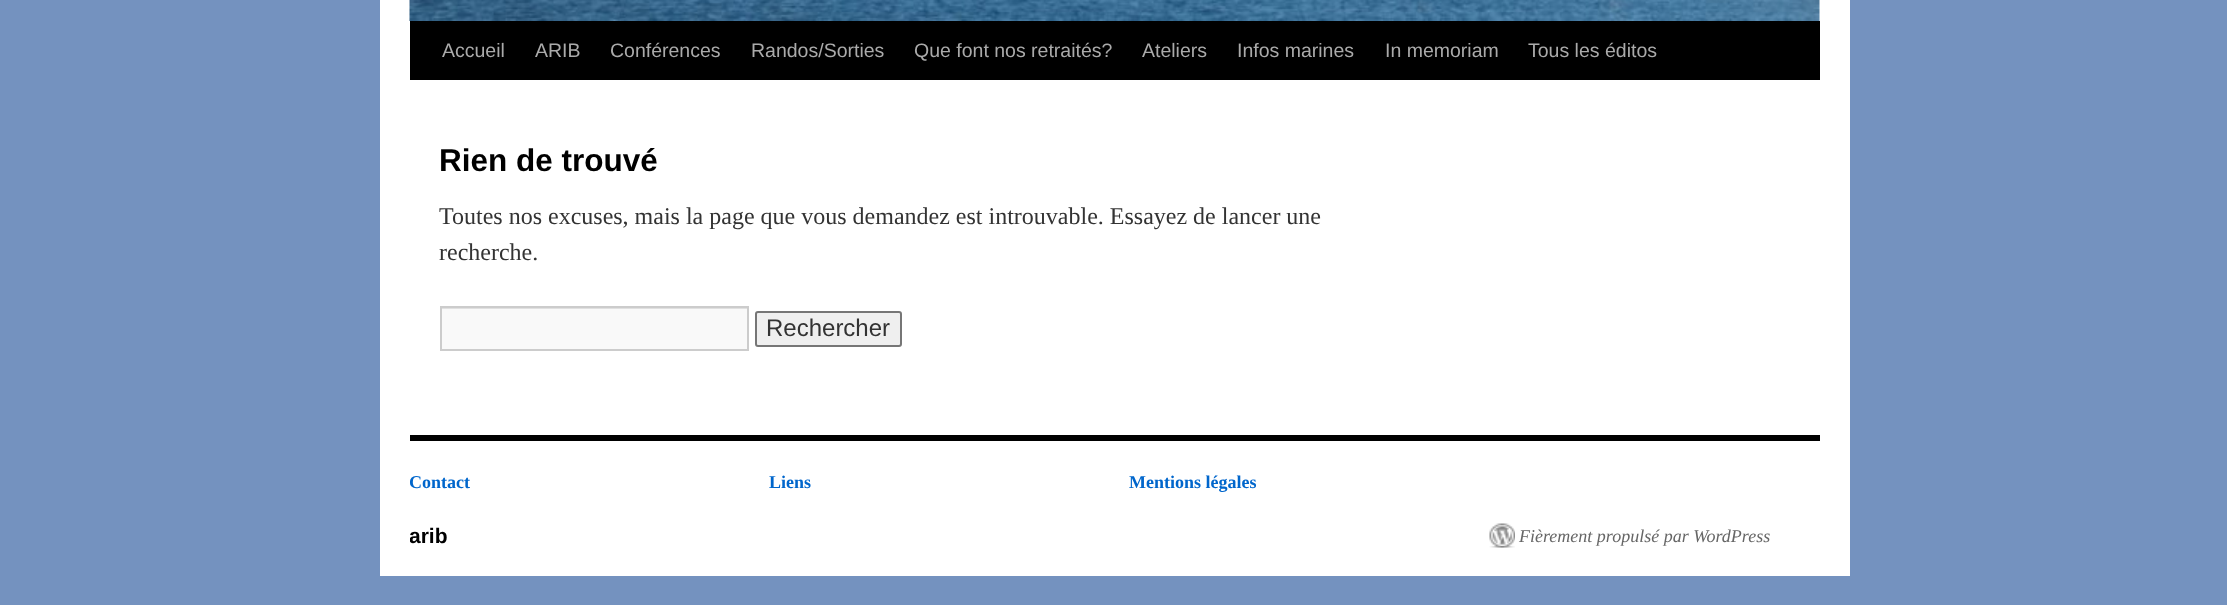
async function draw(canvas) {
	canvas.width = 2227;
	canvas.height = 605;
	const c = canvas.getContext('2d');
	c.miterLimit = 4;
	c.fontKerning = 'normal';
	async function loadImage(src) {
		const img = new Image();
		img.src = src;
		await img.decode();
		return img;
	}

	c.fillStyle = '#7492bf';
	c.fillRect(0, 0, 2227, 605);
	c.fillStyle = '#fff';
	c.fillRect(380, 0, 1470, 576);
	c.fillStyle = '#000';
	c.fillRect(410, 21, 1410, 59);
	c.drawImage(await loadImage('img1.png'), 409, 0, 1411, 21);
	c.font = '19.5px Liberation Sans';
	c.fillStyle = '#aaa';
	for (const [text, x, y] of [
		['Accueil', 442, 57],
		['ARIB', 535, 57],
		['Conférences', 610, 57],
		['Randos/Sorties', 751, 57],
		['Que font nos retraités?', 914, 57],
		['Ateliers', 1142, 57],
		['Infos marines', 1237, 57],
		['In memoriam', 1385, 57],
		['Tous les éditos', 1528, 57],
	]) {
		c.fillText(text, x, y);
	}
	c.font = 'bold 31.5px Liberation Sans';
	c.fillStyle = '#000';
	c.fillText('Rien de trouvé', 439, 171);
	c.font = '24px Liberation Serif';
	c.fillStyle = '#333';
	c.fillText('Toutes nos excuses, mais la page que vous demandez est introuvable. Essayez de lancer une', 439, 224);
	c.fillText('recherche.', 439, 260);
	c.fillStyle = '#f9f9f9';
	c.fillRect(442, 309, 305, 40);
	c.save();
	c.beginPath();
	c.rect(441, 308, 306, 42);
	c.clip();
	c.fillStyle = '#e0e0e0';
	c.beginPath();
	c.moveTo(292, 159);
	c.lineTo(896, 159);
	c.lineTo(896, 498);
	c.lineTo(292, 498);
	c.closePath();
	c.moveTo(442, 309);
	c.lineTo(748, 309);
	c.lineTo(748, 351);
	c.lineTo(442, 351);
	c.closePath();
	c.fill('evenodd');
	c.restore();
	c.strokeStyle = '#ccc';
	c.lineWidth = 2;
	c.strokeRect(441, 307, 307, 43);
	c.fillStyle = '#efefef';
	c.beginPath();
	c.roundRect(756, 312, 145, 34, 2);
	c.fill();
	c.strokeStyle = '#767676';
	c.stroke();
	c.font = '24px Liberation Sans';
	c.fillStyle = '#333';
	c.fillText('Rechercher', 766, 336);
	c.fillStyle = '#000';
	c.fillRect(410, 435, 1410, 6);
	c.save();
	c.beginPath();
	c.rect(410, 468, 1410, 54);
	c.clip();
	c.font = 'bold 18px Liberation Serif';
	c.fillStyle = '#06c';
	c.fillText('Contact', 409, 488);
	c.restore();
	c.font = 'bold 18px Liberation Serif';
	c.fillStyle = '#06c';
	c.fillText('Liens', 769, 488);
	c.fillText('Mentions légales', 1129, 488);
	c.save();
	c.beginPath();
	c.rect(410, 441, 1410, 135);
	c.clip();
	c.font = 'bold 21px Liberation Sans';
	c.fillStyle = '#000';
	c.fillText('arib', 409, 543);
	c.restore();
	c.drawImage(await loadImage('img2.png'), 1489, 523, 26, 25);
	c.font = 'italic 18px Liberation Serif';
	c.fillStyle = '#666';
	c.fillText('Fièrement propulsé par WordPress', 1519, 542);
}

draw(document.querySelector('canvas'));
